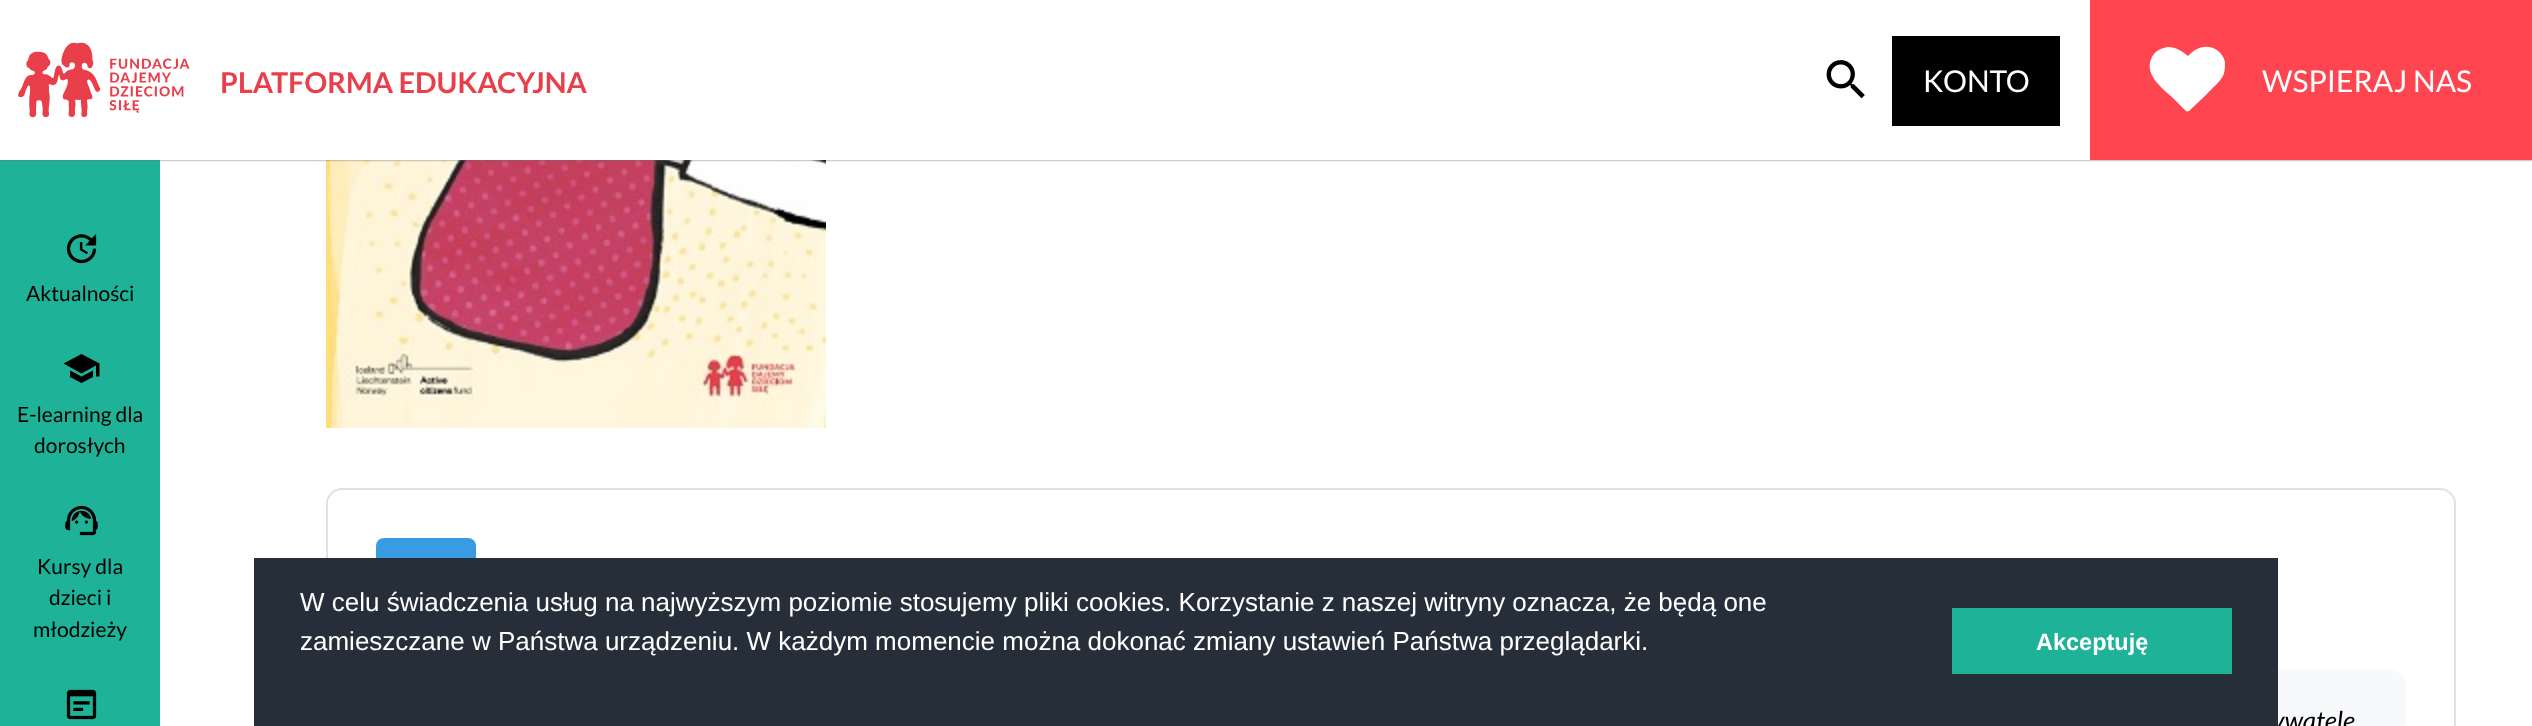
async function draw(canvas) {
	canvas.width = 2532;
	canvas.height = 726;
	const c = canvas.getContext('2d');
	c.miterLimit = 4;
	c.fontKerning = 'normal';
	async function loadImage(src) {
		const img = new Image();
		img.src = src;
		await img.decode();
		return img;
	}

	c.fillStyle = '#fff';
	c.fillRect(0, 0, 2532, 726);
	c.fillStyle = '#1eb298';
	c.fillRect(0, 160, 160, 566);
	c.drawImage(await loadImage('img1.png'), 66, 234, 31, 30);
	c.font = '21px Lato';
	c.fillStyle = '#000';
	c.fillText('Aktualności', 26, 301);
	c.beginPath();
	c.moveTo(81.5, 354);
	c.lineTo(99.5, 363.5);
	c.lineTo(99.5, 376.5);
	c.lineTo(96, 376.5);
	c.lineTo(96, 365.5);
	c.lineTo(81.5, 373.5);
	c.lineTo(63.5, 363.5);
	c.closePath();
	c.moveTo(70, 370.5);
	c.lineTo(81.5, 376.5);
	c.lineTo(93, 370.5);
	c.lineTo(93, 377);
	c.lineTo(81.5, 383);
	c.lineTo(70, 377);
	c.closePath();
	c.fill();
	c.fillText('E-learning dla', 17, 422);
	c.fillText('dorosłych', 34, 453);
	c.drawImage(await loadImage('img2.png'), 65, 505, 33, 31);
	for (const [text, x, y] of [
		['Kursy dla', 37, 574],
		['dzieci i', 49, 605],
		['młodzieży', 33, 637],
	]) {
		c.fillText(text, x, y);
	}
	c.drawImage(await loadImage('img3.png'), 66, 689, 31, 31);
	c.beginPath();
	c.roundRect(327, 489, 2128, 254, 15);
	c.strokeStyle = '#dee2e6';
	c.lineWidth = 2;
	c.stroke();
	c.fillStyle = '#399be2';
	c.beginPath();
	c.roundRect(376, 538, 100, 100, 8);
	c.fill();
	c.fillStyle = '#f8f9fa';
	c.beginPath();
	c.roundRect(376, 670, 2030, 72, 16);
	c.fill();
	c.font = 'italic 26px Lato';
	c.fillStyle = '#000';
	c.fillText('ywatele', 2272, 730);
	c.fillStyle = '#252e39';
	c.fillRect(254, 558, 2024, 168);
	c.font = '26px Liberation Sans';
	c.fillStyle = '#fff';
	c.fillText('W celu świadczenia usług na najwyższym poziomie stosujemy pliki cookies. Korzystanie z naszej witryny oznacza, że będą one', 300, 611);
	c.fillText('zamieszczane w Państwa urządzeniu. W każdym momencie można dokonać zmiany ustawień Państwa przeglądarki.', 300, 650);
	c.fillStyle = '#1eb298';
	c.fillRect(1952, 608, 280, 66);
	c.font = 'bold 23.5px Liberation Sans';
	c.fillStyle = '#fff';
	c.fillText('Akceptuję', 2036, 650);
	c.drawImage(await loadImage('img6.png'), 326, 160, 500, 268);
	c.fillStyle = '#686868';
	c.filter = 'blur(1px)';
	c.beginPath();
	c.rect(0, 0, 2532, 160);
	c.fill();
	c.filter = 'none';
	c.fillStyle = '#fff';
	c.fillRect(0, 0, 2090, 160);
	c.drawImage(await loadImage('img4.png'), 18, 42, 569, 76);
	c.drawImage(await loadImage('img5.png'), 1826, 60, 39, 39);
	c.fillStyle = '#000';
	c.fillRect(1892, 36, 168, 90);
	c.font = '30px Lato';
	c.fillStyle = '#fff';
	c.fillText('KONTO', 1923, 92);
	c.fillStyle = '#ff4550';
	c.fillRect(2090, 0, 442, 160);
	c.fillStyle = '#fff';
	c.beginPath();
	c.moveTo(2189, 111);
	c.bezierCurveTo(2188, 111, 2187, 112, 2186, 111);
	c.lineTo(2173, 98);
	c.bezierCurveTo(2162, 88, 2143, 74, 2152, 57);
	c.bezierCurveTo(2155, 51, 2161, 48, 2168, 47);
	c.bezierCurveTo(2176, 47, 2182, 51, 2188, 56);
	c.bezierCurveTo(2195, 48, 2206, 43, 2217, 50);
	c.bezierCurveTo(2221, 53, 2224, 57, 2225, 62);
	c.bezierCurveTo(2225, 67, 2225, 72, 2223, 76);
	c.bezierCurveTo(2219, 83, 2212, 88, 2207, 94);
	c.closePath();
	c.fill();
	c.fillText('WSPIERAJ NAS', 2262, 92);
}

draw(document.querySelector('canvas'));
